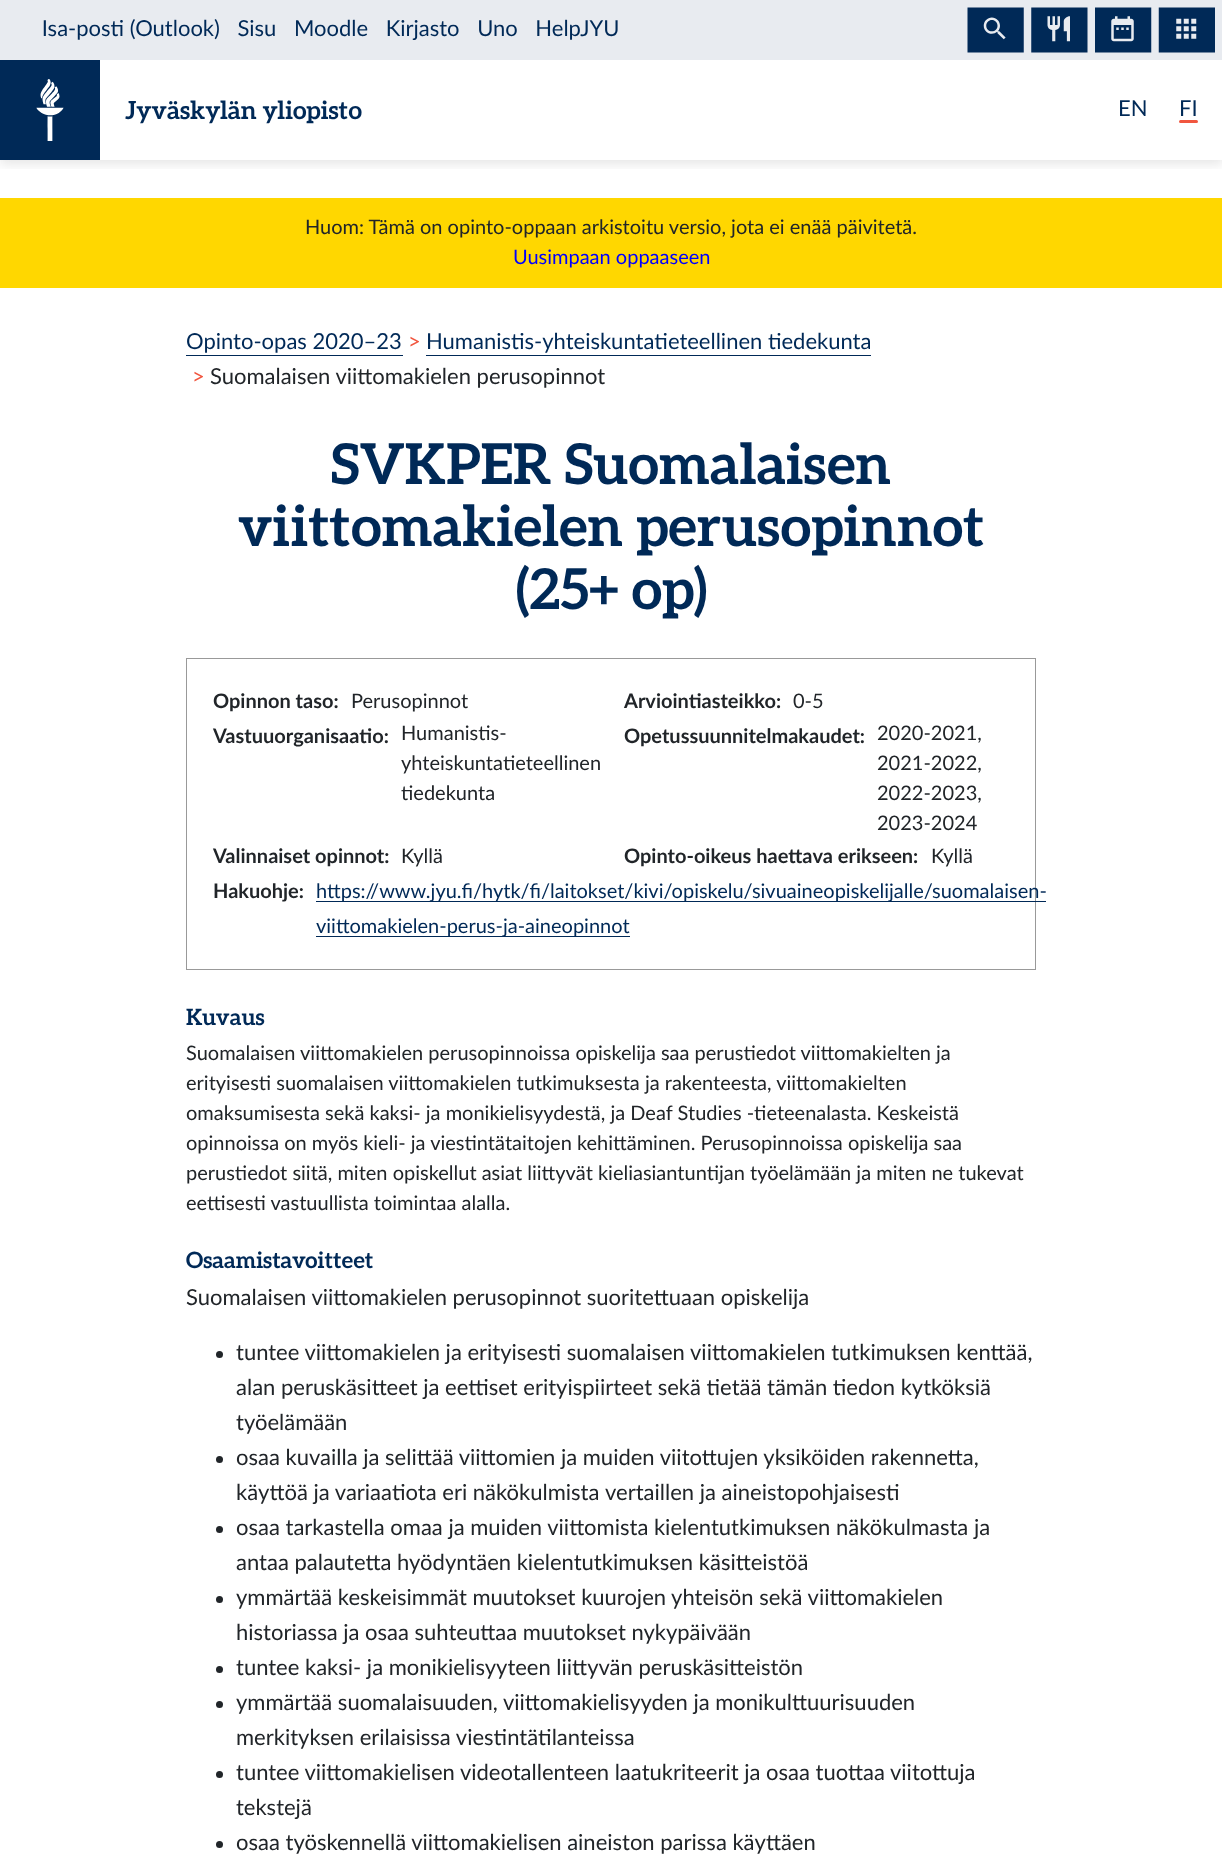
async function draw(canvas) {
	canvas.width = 1222;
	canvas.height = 1860;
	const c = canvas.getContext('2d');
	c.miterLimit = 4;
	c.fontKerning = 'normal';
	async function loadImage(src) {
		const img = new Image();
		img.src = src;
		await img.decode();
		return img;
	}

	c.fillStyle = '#fff';
	c.fillRect(0, 0, 1222, 1860);
	c.save();
	c.beginPath();
	c.rect(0, 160, 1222, 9);
	c.clip();
	c.fillStyle = '#0000001a';
	c.filter = 'blur(6px)';
	c.beginPath();
	c.rect(0, 64, 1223, 100);
	c.fill();
	c.filter = 'none';
	c.restore();
	c.drawImage(await loadImage('img1.png'), 0, 0, 1222, 60);
	c.fillStyle = '#002957';
	c.fillRect(0, 60, 100, 100);
	c.drawImage(await loadImage('img2.png'), 36, 79, 28, 62);
	c.font = 'bold 25px Aleo';
	c.fillText('Jyväskylän yliopisto', 125, 119);
	c.font = '22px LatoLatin';
	c.fillText('EN', 1118, 116);
	c.fillText('FI', 1179, 116);
	c.fillStyle = '#f1563f';
	c.beginPath();
	c.roundRect(1179, 120, 19, 3, 1.5);
	c.fill();
	c.fillStyle = '#ffd700';
	c.fillRect(0, 198, 1222, 90);
	c.font = '20px LatoLatin';
	c.fillStyle = '#212529';
	c.fillText('Huom: Tämä on opinto-oppaan arkistoitu versio, jota ei enää päivitetä.', 305, 234);
	c.fillStyle = '#00f';
	c.fillText('Uusimpaan oppaaseen', 513, 264);
	c.font = '22px LatoLatin';
	c.fillStyle = '#002957';
	c.fillText('Opinto-opas 2020–23', 186, 349);
	c.fillRect(186, 355, 217, 1);
	c.fillStyle = '#f1563f';
	c.fillText('>', 408, 349);
	c.fillStyle = '#002957';
	c.fillText('Humanistis-yhteiskuntatieteellinen tiedekunta', 426, 349);
	c.fillRect(426, 355, 445, 1);
	c.fillStyle = '#f1563f';
	c.fillText('>', 192, 384);
	c.fillStyle = '#212529';
	c.fillText('Suomalaisen viittomakielen perusopinnot', 210, 384);
	c.font = 'bold 56.25px Aleo';
	c.fillStyle = '#002957';
	for (const [text, x, y] of [
		['SVKPER Suomalaisen', 331, 484],
		['viittomakielen perusopinnot', 238, 546],
		['(25+ op)', 516, 609],
	]) {
		c.fillText(text, x, y);
	}
	c.strokeStyle = '#999';
	c.strokeRect(186.5, 658.5, 849, 311);
	c.font = 'bold 20px LatoLatin';
	c.fillStyle = '#212529';
	c.fillText('Opinnon taso:', 213, 708);
	c.font = '20px LatoLatin';
	c.fillText('Perusopinnot', 351, 708);
	c.font = 'bold 20px LatoLatin';
	c.fillText('Arviointiasteikko:', 624, 708);
	c.font = '20px LatoLatin';
	c.fillText('0-5', 793, 708);
	c.font = 'bold 20px LatoLatin';
	c.fillText('Vastuuorganisaatio:', 213, 743);
	c.font = '20px LatoLatin';
	for (const [text, x, y] of [
		['Humanistis-', 401, 740],
		['yhteiskuntatieteellinen', 401, 770],
		['tiedekunta', 401, 800],
	]) {
		c.fillText(text, x, y);
	}
	c.font = 'bold 20px LatoLatin';
	c.fillText('Opetussuunnitelmakaudet:', 624, 743);
	c.font = '20px LatoLatin';
	for (const [text, x, y] of [
		['2020-2021,', 877, 740],
		['2021-2022,', 877, 770],
		['2022-2023,', 877, 800],
		['2023-2024', 877, 830],
	]) {
		c.fillText(text, x, y);
	}
	c.font = 'bold 20px LatoLatin';
	c.fillText('Valinnaiset opinnot:', 213, 863);
	c.font = '20px LatoLatin';
	c.fillText('Kyllä', 401, 863);
	c.font = 'bold 20px LatoLatin';
	c.fillText('Opinto-oikeus haettava erikseen:', 624, 863);
	c.font = '20px LatoLatin';
	c.fillText('Kyllä', 931, 863);
	c.font = 'bold 20px LatoLatin';
	c.fillText('Hakuohje:', 213, 898);
	c.fillStyle = '#002957';
	c.fillRect(316, 901, 730, 1);
	c.font = '20px LatoLatin';
	c.fillText('https://www.jyu.fi/hytk/fi/laitokset/kivi/opiskelu/sivuaineopiskelijalle/suomalaisen-', 316, 898);
	c.fillRect(316, 936, 314, 1);
	c.fillText('viittomakielen-perus-ja-aineopinnot', 316, 933);
	c.font = 'bold 22.5px Aleo';
	c.fillText('Kuvaus', 186, 1025);
	c.font = '20px LatoLatin';
	c.fillStyle = '#212529';
	for (const [text, x, y] of [
		['Suomalaisen viittomakielen perusopinnoissa opiskelija saa perustiedot viittomakielten ja', 186, 1060],
		['erityisesti suomalaisen viittomakielen tutkimuksesta ja rakenteesta, viittomakielten', 186, 1090],
		['omaksumisesta sekä kaksi- ja monikielisyydestä, ja Deaf Studies -tieteenalasta. Keskeistä', 186, 1120],
		['opinnoissa on myös kieli- ja viestintätaitojen kehittäminen. Perusopinnoissa opiskelija saa', 186, 1150],
		['perustiedot siitä, miten opiskellut asiat liittyvät kieliasiantuntijan työelämään ja miten ne tukevat', 186, 1180],
		['eettisesti vastuullista toimintaa alalla.', 186, 1210],
	]) {
		c.fillText(text, x, y);
	}
	c.font = 'bold 22.5px Aleo';
	c.fillStyle = '#002957';
	c.fillText('Osaamistavoitteet', 186, 1268);
	c.font = '22px LatoLatin';
	c.fillStyle = '#212529';
	c.fillText('Suomalaisen viittomakielen perusopinnot suoritettuaan opiskelija', 186, 1305);
	c.beginPath();
	c.arc(219.5, 1354.5, 3.5, 0, 2 * Math.PI);
	c.fill();
	for (const [text, x, y] of [
		['tuntee viittomakielen ja erityisesti suomalaisen', 236, 1360],
		['viittomakielen tutkimuksen kenttää,', 690, 1360],
		['alan peruskäsitteet ja eettiset erityispiirteet sekä tietää tämän tiedon kytköksiä', 236, 1395],
		['työelämään', 236, 1430],
	]) {
		c.fillText(text, x, y);
	}
	c.beginPath();
	c.arc(219.5, 1459.5, 3.5, 0, 2 * Math.PI);
	c.fill();
	for (const [text, x, y] of [
		['osaa kuvailla ja selittää viittomien ja muiden viitottujen yksiköiden rakennetta,', 236, 1465],
		['käyttöä ja variaatiota eri näkökulmista', 236, 1500],
		['vertaillen ja aineistopohjaisesti', 605, 1500],
	]) {
		c.fillText(text, x, y);
	}
	c.beginPath();
	c.arc(219.5, 1529.5, 3.5, 0, 2 * Math.PI);
	c.fill();
	c.fillText('osaa tarkastella omaa ja muiden viittomista kielentutkimuksen näkökulmasta ja', 236, 1535);
	c.fillText('antaa palautetta hyödyntäen kielentutkimuksen käsitteistöä', 236, 1570);
	c.beginPath();
	c.arc(219.5, 1599.5, 3.5, 0, 2 * Math.PI);
	c.fill();
	c.fillText('ymmärtää keskeisimmät muutokset kuurojen yhteisön sekä viittomakielen', 236, 1605);
	c.fillText('historiassa ja osaa suhteuttaa muutokset nykypäivään', 236, 1640);
	c.beginPath();
	c.arc(219.5, 1669.5, 3.5, 0, 2 * Math.PI);
	c.fill();
	c.fillText('tuntee kaksi- ja monikielisyyteen liittyvän peruskäsitteistön', 236, 1675);
	c.beginPath();
	c.arc(219.5, 1704.5, 3.5, 0, 2 * Math.PI);
	c.fill();
	c.fillText('ymmärtää suomalaisuuden, viittomakielisyyden ja monikulttuurisuuden', 236, 1710);
	c.fillText('merkityksen erilaisissa viestintätilanteissa', 236, 1745);
	c.beginPath();
	c.arc(219.5, 1774.5, 3.5, 0, 2 * Math.PI);
	c.fill();
	c.fillText('tuntee viittomakielisen videotallenteen laatukriteerit ja osaa tuottaa viitottuja', 236, 1780);
	c.fillText('tekstejä', 236, 1815);
	c.beginPath();
	c.arc(219.5, 1844.5, 3.5, 0, 2 * Math.PI);
	c.fill();
	c.fillText('osaa työskennellä viittomakielisen aineiston parissa käyttäen', 236, 1850);
}

draw(document.querySelector('canvas'));
